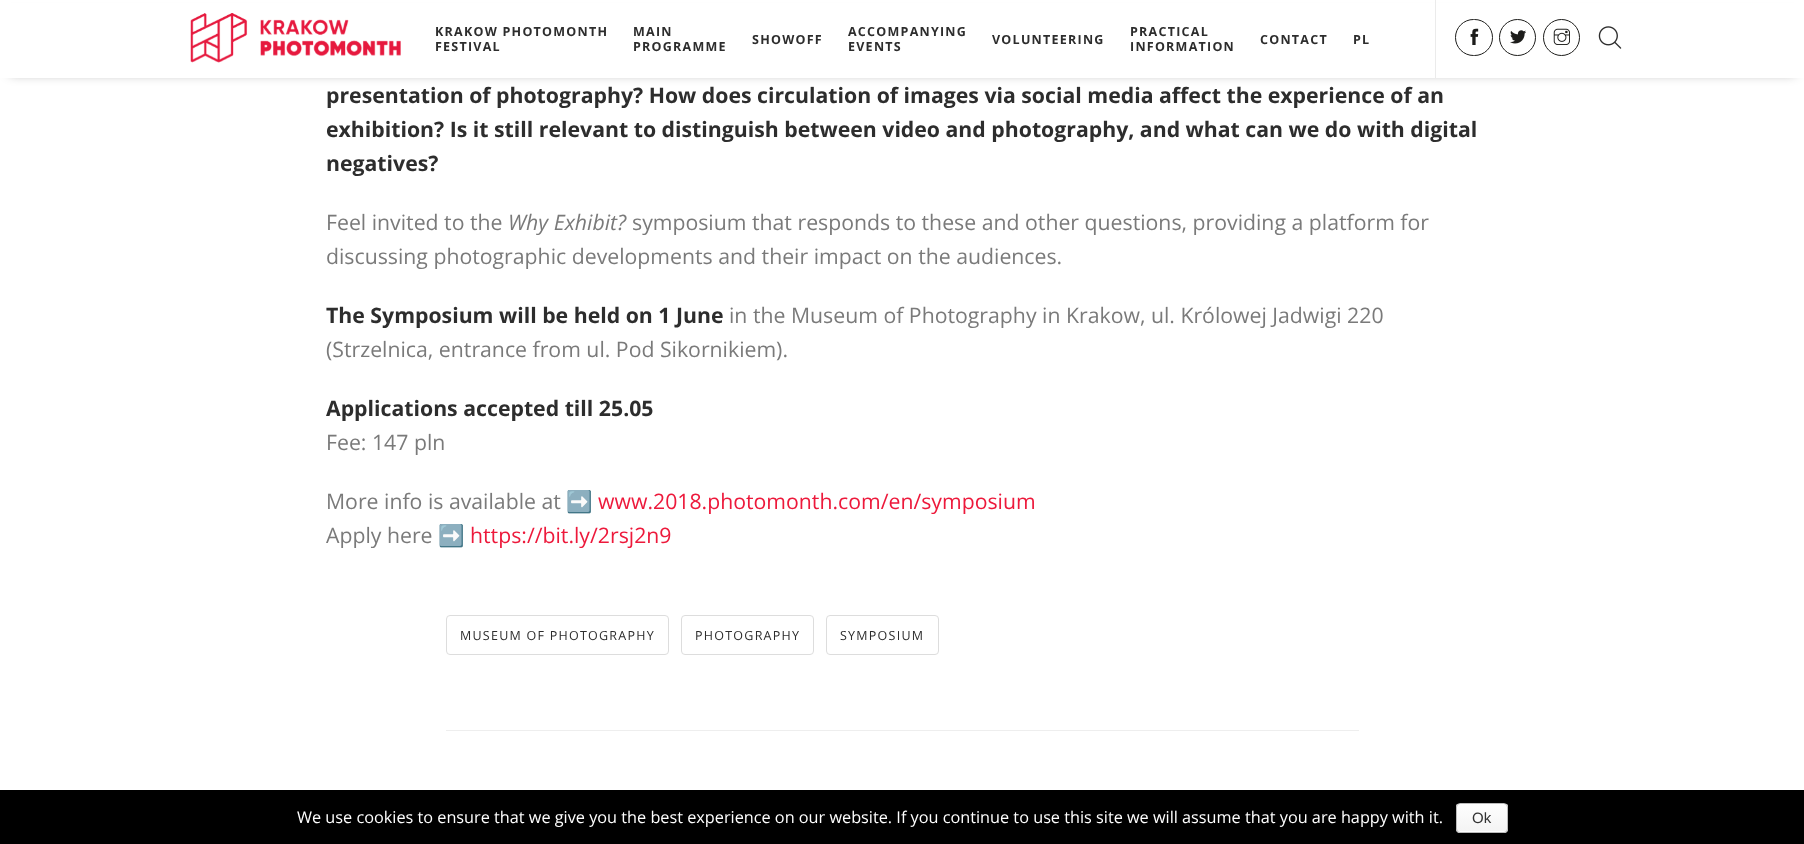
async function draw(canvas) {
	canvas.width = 1804;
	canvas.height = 844;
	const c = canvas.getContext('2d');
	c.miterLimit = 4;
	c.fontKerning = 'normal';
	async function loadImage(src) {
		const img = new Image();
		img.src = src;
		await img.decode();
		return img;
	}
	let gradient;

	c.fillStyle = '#fff';
	c.fillRect(0, 0, 1804, 844);
	c.fillStyle = '#00000073';
	c.filter = 'blur(6px)';
	c.beginPath();
	c.rect(10, 15, 1785, 58);
	c.fill();
	c.filter = 'none';
	c.fillStyle = '#fff';
	c.fillRect(0, 3, 1804, 75);
	c.drawImage(await loadImage('img1.png'), 190, 13, 211, 50);
	c.letterSpacing = '1.25px';
	c.font = 'bold 12.5px Open Sans';
	c.fillStyle = '#2d2d2d';
	for (const [text, x, y] of [
		['KRAKOW PHOTOMONTH', 435, 36],
		['FESTIVAL', 435, 51],
		['MAIN', 633, 36],
		['PROGRAMME', 633, 51],
		['SHOWOFF', 752, 44],
		['ACCOMPANYING', 848, 36],
		['EVENTS', 848, 51],
		['VOLUNTEERING', 992, 44],
		['PRACTICAL', 1130, 36],
		['INFORMATION', 1130, 51],
		['CONTACT', 1260, 44],
		['PL', 1353, 44],
	]) {
		c.fillText(text, x, y);
	}
	c.fillStyle = '#ebebeb';
	c.fillRect(1435, 0, 1, 78);
	c.beginPath();
	c.roundRect(1455.5, 19.5, 37, 36, 18);
	c.strokeStyle = '#1d1d1b';
	c.stroke();
	c.drawImage(await loadImage('img2.png'), 1470, 28, 9, 17);
	c.beginPath();
	c.arc(1517.5, 37.5, 18, 0, 2 * Math.PI);
	c.stroke();
	c.drawImage(await loadImage('img3.png'), 1510, 30, 16, 14);
	c.beginPath();
	c.arc(1561.5, 37.5, 18, 0, 2 * Math.PI);
	c.stroke();
	c.drawImage(await loadImage('img4.png'), 1553, 28, 17, 17);
	c.drawImage(await loadImage('img5.png'), 1598, 26, 24, 23);
	c.letterSpacing = '0px';
	c.font = 'bold 21.25px Open Sans';
	c.fillStyle = '#2d2d2d';
	for (const [text, x, y] of [
		['presentation of photography? How does circulation of images via social media affect the experience of an', 326, 103],
		['exhibition? Is it still relevant to distinguish between video and photography, and what can we do with digital', 326, 137],
		['negatives?', 326, 171],
	]) {
		c.fillText(text, x, y);
	}
	c.font = '21.25px Open Sans';
	c.fillStyle = '#7a7a7a';
	c.fillText('Feel invited to the', 326, 230);
	c.font = 'italic 21.25px Open Sans';
	c.fillText('Why Exhibit?', 508, 230);
	c.font = '21.25px Open Sans';
	c.fillText('symposium that responds to these and other questions, providing a platform for', 632, 230);
	c.fillText('discussing photographic developments and their impact on the audiences.', 326, 264);
	c.font = 'bold 21.25px Open Sans';
	c.fillStyle = '#2d2d2d';
	c.fillText('The Symposium will be held on 1 June', 326, 323);
	c.font = '21.25px Open Sans';
	c.fillStyle = '#7a7a7a';
	c.fillText('in the Museum of Photography in Krakow, ul. Królowej Jadwigi 220', 729, 323);
	c.fillText('(Strzelnica, entrance from ul. Pod Sikornikiem).', 326, 357);
	c.font = 'bold 21.25px Open Sans';
	c.fillStyle = '#2d2d2d';
	c.fillText('Applications accepted till 25.05', 326, 416);
	c.font = '21.25px Open Sans';
	c.fillStyle = '#7a7a7a';
	c.fillText('Fee: 147 pln', 326, 450);
	c.fillText('More info is available at', 326, 509);
	c.font = '21.25px Noto Color Emoji';
	c.fillText('➡️', 566, 509);
	c.font = '21.25px Open Sans';
	c.fillStyle = '#ed193b';
	c.fillText('www.2018.photomonth.com/en/symposium', 598, 509);
	c.fillStyle = '#7a7a7a';
	c.fillText('Apply here', 326, 543);
	c.font = '21.25px Noto Color Emoji';
	c.fillText('➡️', 438, 543);
	c.font = '21.25px Open Sans';
	c.fillStyle = '#ed193b';
	c.fillText('https://bit.ly/2rsj2n9', 470, 543);
	c.beginPath();
	c.roundRect(446.5, 615.5, 222, 39, 3.5);
	c.strokeStyle = '#ddd';
	c.stroke();
	c.letterSpacing = '1.25px';
	c.font = '12.5px Open Sans';
	c.fillStyle = '#2d2d2d';
	c.fillText('MUSEUM OF PHOTOGRAPHY', 460, 640);
	c.beginPath();
	c.roundRect(681.5, 615.5, 132, 39, 3.5);
	c.stroke();
	c.fillText('PHOTOGRAPHY', 695, 640);
	c.beginPath();
	c.roundRect(826.5, 615.5, 112, 39, 3.5);
	c.stroke();
	c.fillText('SYMPOSIUM', 840, 640);
	c.fillStyle = '#eee';
	c.fillRect(446, 730, 913, 1);
	c.fillStyle = '#000';
	c.fillRect(0, 790, 1804, 54);
	c.letterSpacing = '0px';
	c.font = '16.25px Open Sans';
	c.fillStyle = '#fff';
	c.fillText('We use cookies to ensure that we give you the best experience on our website. If you continue to use this site we will assume that you are happy with it.', 297, 823);
	c.save();
	c.beginPath();
	c.roundRect(1456, 803, 52, 30, 4);
	c.clip();
	gradient = c.createLinearGradient(1482, 804, 1482, 831);
	gradient.addColorStop(0, '#fefefe');
	gradient.addColorStop(1, '#f4f4f4');
	c.fillStyle = gradient;
	c.fillRect(1456, 804, 52, 27);
	gradient = c.createLinearGradient(1482, 831, 1482, 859);
	gradient.addColorStop(0, '#fefefe');
	gradient.addColorStop(1, '#f4f4f4');
	c.fillStyle = gradient;
	c.fillRect(1456, 831, 52, 2);
	c.restore();
	c.beginPath();
	c.roundRect(1456.5, 803.5, 51, 29, 3.5);
	c.strokeStyle = '#bbb';
	c.stroke();
	c.font = '15px Liberation Sans';
	c.fillStyle = '#333';
	c.fillText('Ok', 1472, 823);
}

draw(document.querySelector('canvas'));
